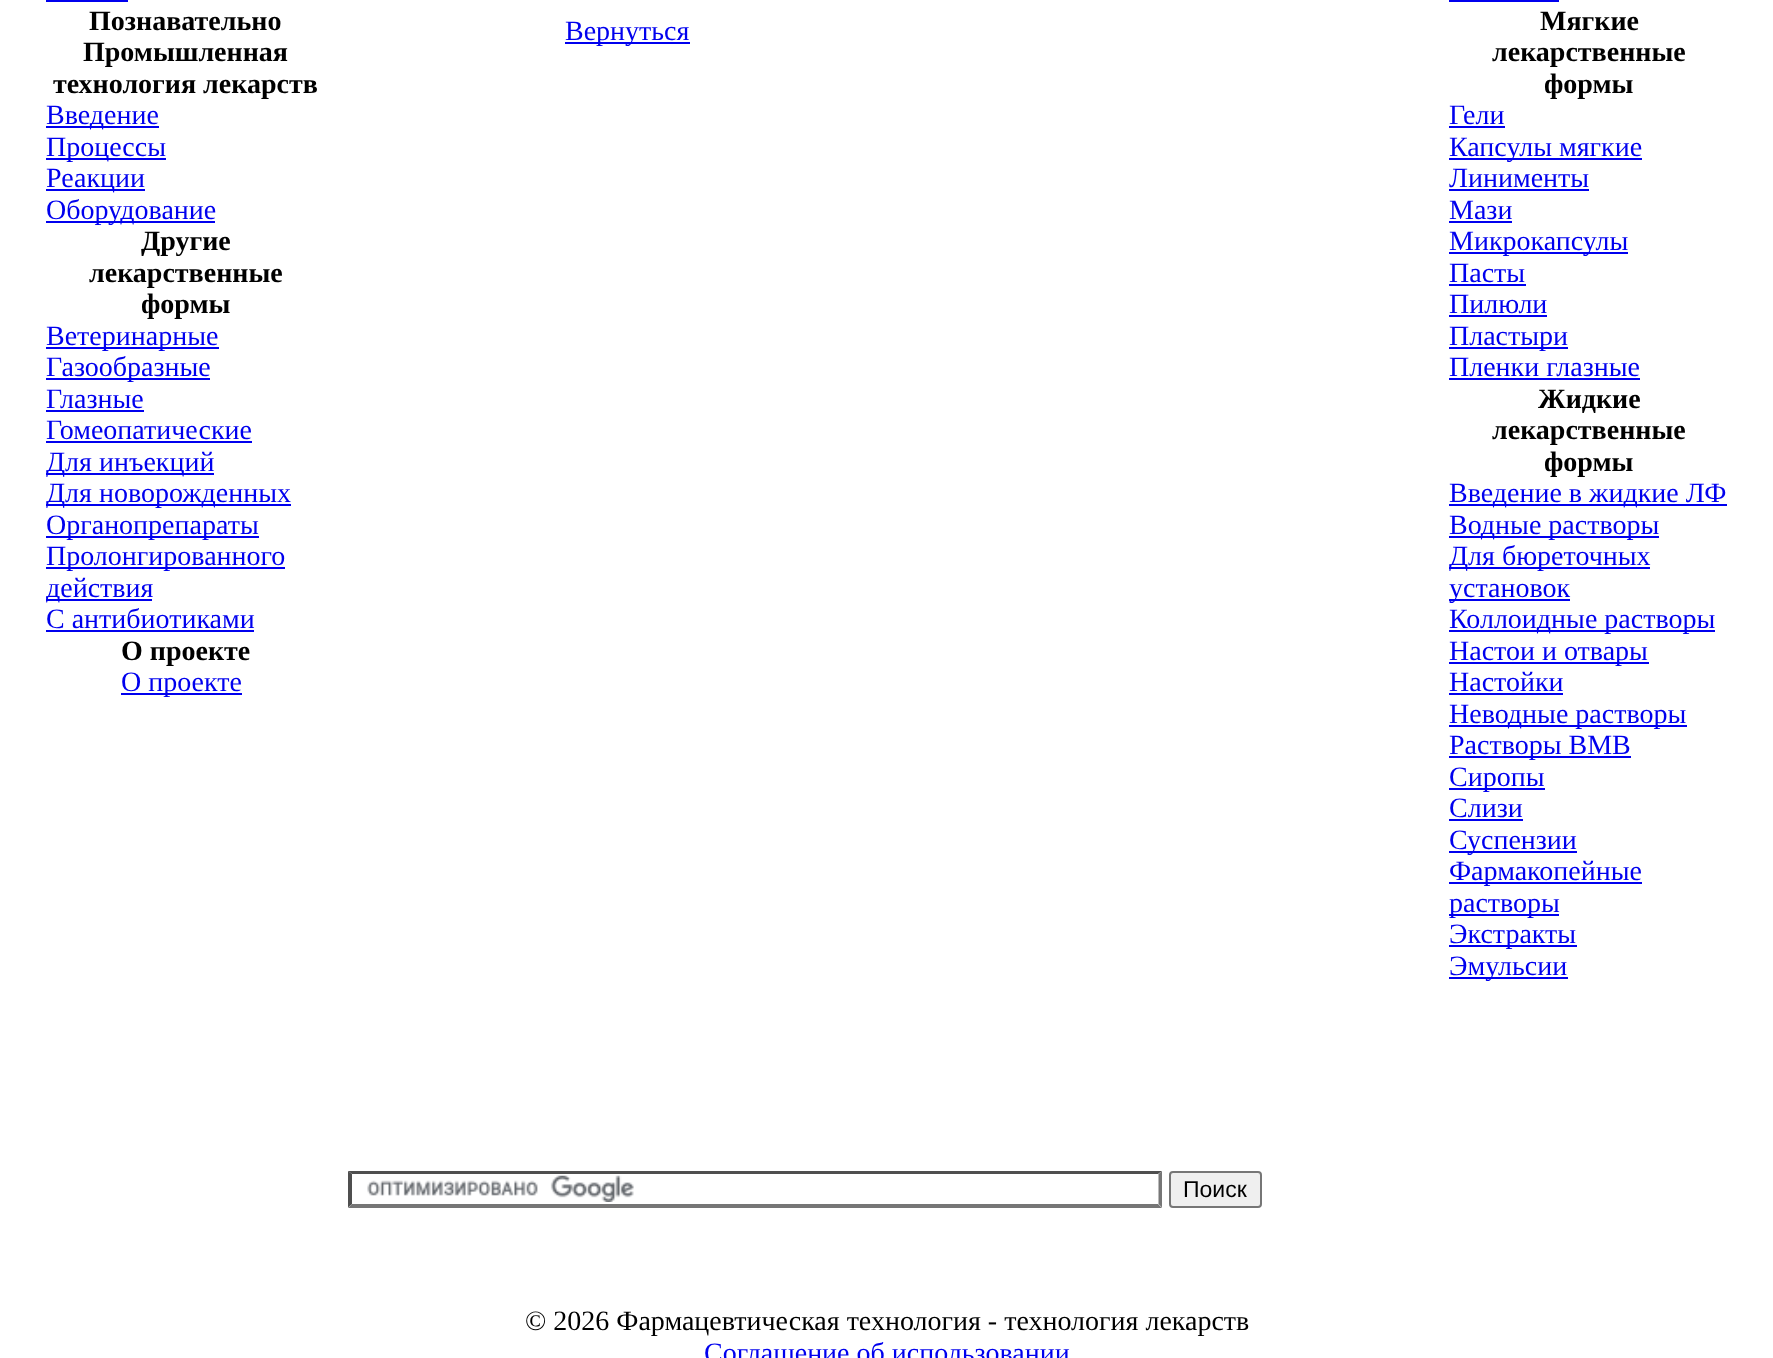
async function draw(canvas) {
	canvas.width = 1773;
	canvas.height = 1358;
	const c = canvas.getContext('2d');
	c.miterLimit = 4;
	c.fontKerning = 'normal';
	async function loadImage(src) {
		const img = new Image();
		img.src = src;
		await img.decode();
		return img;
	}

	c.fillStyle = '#fff';
	c.fillRect(0, 0, 1773, 1358);
	c.fillStyle = '#00e';
	c.fillRect(46, 0, 82, 2);
	c.font = 'bold 28px Liberation Serif';
	c.fillStyle = '#000';
	for (const [text, x, y] of [
		['Познавательно', 89, 30],
		['Промышленная', 83, 61],
		['технология лекарств', 53, 93],
	]) {
		c.fillText(text, x, y);
	}
	c.fillStyle = '#00e';
	c.fillRect(46, 126, 113, 2);
	c.font = '28px Liberation Serif';
	c.fillText('Введение', 46, 124);
	c.fillRect(46, 158, 120, 2);
	c.fillText('Процессы', 46, 156);
	c.fillRect(46, 189, 99, 2);
	c.fillText('Реакции', 46, 187);
	c.fillRect(46, 221, 169, 2);
	c.fillText('Оборудование', 46, 219);
	c.font = 'bold 28px Liberation Serif';
	c.fillStyle = '#000';
	for (const [text, x, y] of [
		['Другие', 141, 250],
		['лекарственные', 89, 282],
		['формы', 141, 313],
	]) {
		c.fillText(text, x, y);
	}
	c.fillStyle = '#00e';
	c.fillRect(46, 347, 173, 2);
	c.font = '28px Liberation Serif';
	c.fillText('Ветеринарные', 46, 345);
	c.fillRect(46, 378, 164, 2);
	c.fillText('Газообразные', 46, 376);
	c.fillText('Глазные', 46, 408);
	c.fillRect(46, 410, 98, 2);
	c.fillText('Гомеопатические', 46, 439);
	c.fillRect(46, 441, 206, 2);
	c.fillRect(46, 473, 168, 2);
	c.fillText('Для инъекций', 46, 471);
	c.fillRect(46, 504, 245, 2);
	c.fillText('Для новорожденных', 46, 502);
	c.fillRect(46, 536, 213, 2);
	c.fillText('Органопрепараты', 46, 534);
	c.fillRect(46, 567, 239, 2);
	c.fillText('Пролонгированного', 46, 565);
	c.fillRect(46, 599, 106, 2);
	c.fillText('действия', 46, 597);
	c.fillText('С антибиотиками', 46, 628);
	c.fillRect(46, 630, 208, 2);
	c.font = 'bold 28px Liberation Serif';
	c.fillStyle = '#000';
	c.fillText('О проекте', 121, 660);
	c.fillStyle = '#00e';
	c.fillRect(121, 693, 121, 2);
	c.font = '28px Liberation Serif';
	c.fillText('О проекте', 121, 691);
	c.fillRect(565, 42, 125, 2);
	c.fillText('Вернуться', 565, 40);
	c.drawImage(await loadImage('img1.png'), 367, 1175, 267, 27);
	c.fillStyle = '#4f4f4f';
	c.beginPath();
	c.moveTo(348, 1171);
	c.lineTo(1162, 1171);
	c.lineTo(1158, 1174);
	c.lineTo(352, 1174);
	c.closePath();
	c.fill();
	c.fillStyle = '#767676';
	c.beginPath();
	c.moveTo(1162, 1171);
	c.lineTo(1162, 1207.5);
	c.lineTo(1158.5, 1204);
	c.lineTo(1158.5, 1174);
	c.closePath();
	c.fill();
	c.beginPath();
	c.moveTo(1162, 1208);
	c.lineTo(348, 1208);
	c.lineTo(352, 1204);
	c.lineTo(1158, 1204);
	c.closePath();
	c.fill();
	c.fillStyle = '#4f4f4f';
	c.beginPath();
	c.moveTo(348, 1207.5);
	c.lineTo(348, 1171);
	c.lineTo(352, 1174);
	c.lineTo(352, 1204);
	c.closePath();
	c.fill();
	c.fillStyle = '#efefef';
	c.beginPath();
	c.roundRect(1170, 1172, 91, 35, 3);
	c.fill();
	c.strokeStyle = '#767676';
	c.lineWidth = 2;
	c.stroke();
	c.font = '23px Liberation Sans';
	c.fillStyle = '#000';
	c.fillText('Поиск', 1183, 1197);
	c.fillStyle = '#00e';
	c.fillRect(1449, 0, 110, 2);
	c.font = 'bold 28px Liberation Serif';
	c.fillStyle = '#000';
	for (const [text, x, y] of [
		['Мягкие', 1540, 30],
		['лекарственные', 1492, 61],
		['формы', 1544, 93],
	]) {
		c.fillText(text, x, y);
	}
	c.font = '28px Liberation Serif';
	c.fillStyle = '#00e';
	c.fillText('Гели', 1449, 124);
	c.fillRect(1449, 126, 56, 2);
	c.fillRect(1449, 158, 193, 2);
	c.fillText('Капсулы мягкие', 1449, 156);
	c.fillText('Линименты', 1449, 187);
	c.fillRect(1449, 189, 140, 2);
	c.fillText('Мази', 1449, 219);
	c.fillRect(1449, 221, 63, 2);
	c.fillRect(1449, 252, 179, 2);
	c.fillText('Микрокапсулы', 1449, 250);
	c.fillText('Пасты', 1449, 282);
	c.fillRect(1449, 284, 77, 2);
	c.fillText('Пилюли', 1449, 313);
	c.fillRect(1449, 315, 98, 2);
	c.fillRect(1449, 347, 119, 2);
	c.fillText('Пластыри', 1449, 345);
	c.fillText('Пленки глазные', 1449, 376);
	c.fillRect(1449, 378, 191, 2);
	c.font = 'bold 28px Liberation Serif';
	c.fillStyle = '#000';
	for (const [text, x, y] of [
		['Жидкие', 1538, 408],
		['лекарственные', 1492, 439],
		['формы', 1544, 471],
	]) {
		c.fillText(text, x, y);
	}
	c.fillStyle = '#00e';
	c.fillRect(1449, 504, 278, 2);
	c.font = '28px Liberation Serif';
	c.fillText('Введение в жидкие ЛФ', 1449, 502);
	c.fillRect(1449, 536, 210, 2);
	c.fillText('Водные растворы', 1449, 534);
	c.fillRect(1449, 567, 201, 2);
	c.fillText('Для бюреточных', 1449, 565);
	c.fillRect(1449, 599, 121, 2);
	c.fillText('установок', 1449, 597);
	c.fillRect(1449, 630, 266, 2);
	c.fillText('Коллоидные растворы', 1449, 628);
	c.fillRect(1449, 662, 200, 2);
	c.fillText('Настои и отвары', 1449, 660);
	c.fillText('Настойки', 1449, 691);
	c.fillRect(1449, 693, 114, 2);
	c.fillRect(1449, 725, 238, 2);
	c.fillText('Неводные растворы', 1449, 723);
	c.fillRect(1449, 756, 182, 2);
	c.fillText('Растворы ВМВ', 1449, 754);
	c.fillRect(1449, 788, 96, 2);
	c.fillText('Сиропы', 1449, 786);
	c.fillText('Слизи', 1449, 817);
	c.fillRect(1449, 819, 74, 2);
	c.fillRect(1449, 851, 128, 2);
	c.fillText('Суспензии', 1449, 849);
	c.fillRect(1449, 882, 193, 2);
	c.fillText('Фармакопейные', 1449, 880);
	c.fillRect(1449, 914, 110, 2);
	c.fillText('растворы', 1449, 912);
	c.fillRect(1449, 945, 128, 2);
	c.fillText('Экстракты', 1449, 943);
	c.fillRect(1449, 977, 119, 2);
	c.fillText('Эмульсии', 1449, 975);
	c.fillStyle = '#000';
	c.fillText('© 2026 Фармацевтическая технология - технология лекарств', 525, 1330);
	c.fillStyle = '#00e';
	c.fillText('Соглашение об использовании', 704, 1362);
}

draw(document.querySelector('canvas'));
